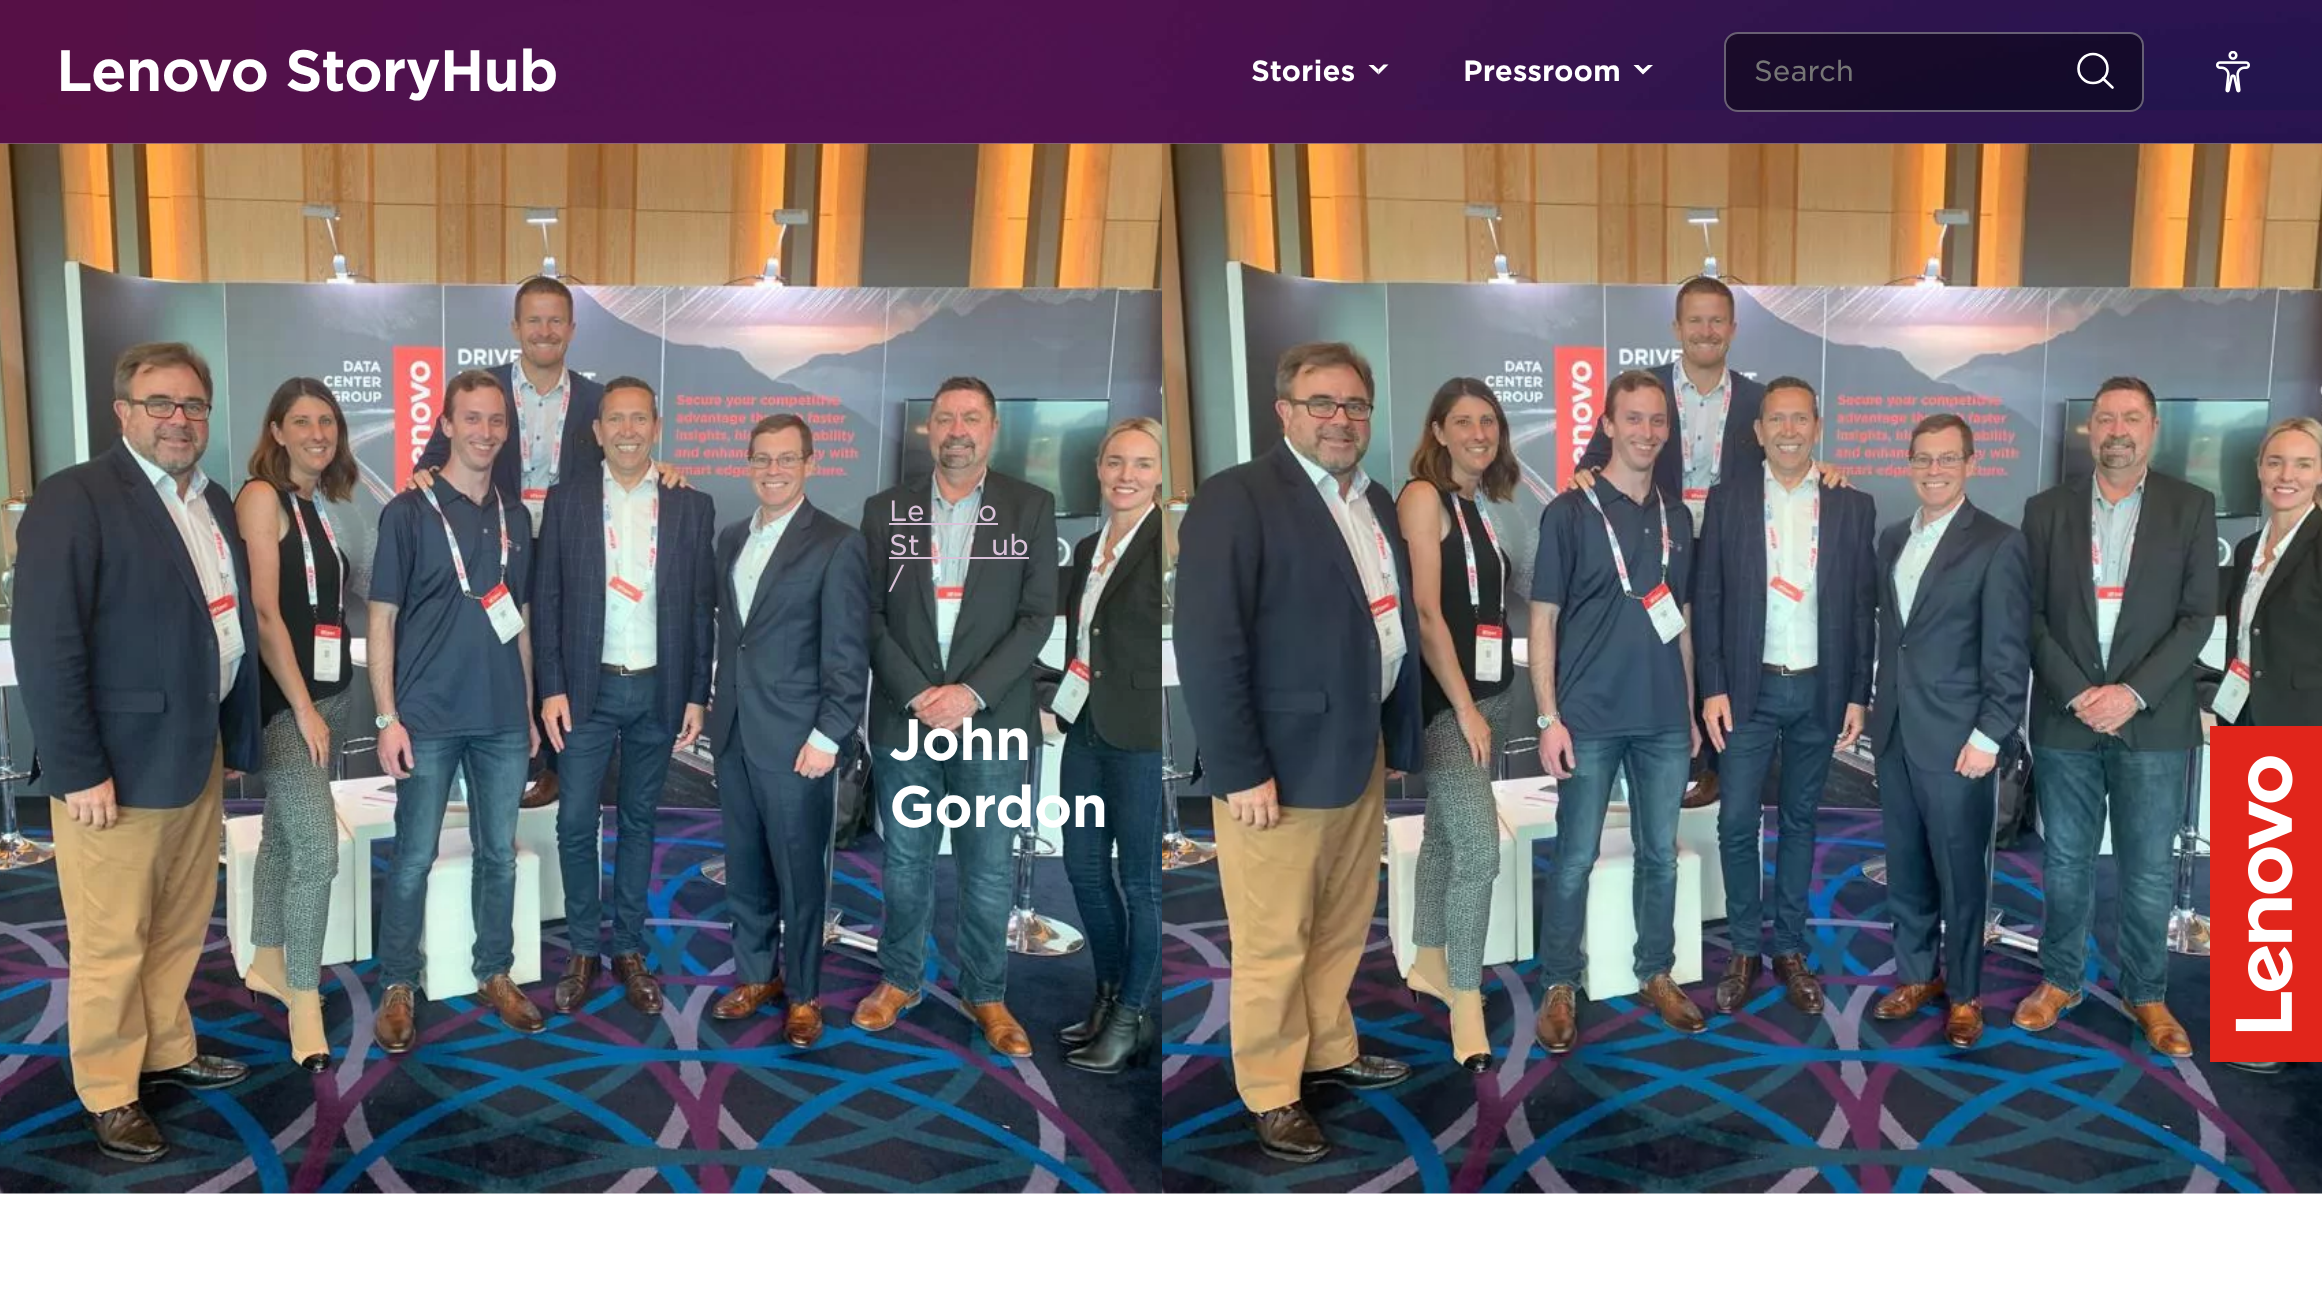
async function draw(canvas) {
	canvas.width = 2322;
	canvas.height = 1300;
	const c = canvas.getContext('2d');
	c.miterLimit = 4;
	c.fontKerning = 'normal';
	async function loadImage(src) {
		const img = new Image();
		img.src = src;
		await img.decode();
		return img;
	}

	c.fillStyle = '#fff';
	c.fillRect(0, 0, 2322, 1300);
	c.drawImage(await loadImage('img3.png'), 0, 143, 1162, 1051);
	c.drawImage(await loadImage('img4.png'), 1162, 143, 1160, 1051);
	c.drawImage(await loadImage('img1.png'), 0, 0, 2322, 144);
	c.letterSpacing = '-1.1px';
	c.font = 'bold 56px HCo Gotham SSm';
	c.fillText('Lenovo StoryHub', 56, 91);
	c.letterSpacing = '0px';
	c.font = 'bold 28px HCo Gotham SSm';
	c.fillText('Stories', 1251, 81);
	c.beginPath();
	c.moveTo(1388.5, 64.5);
	c.lineTo(1378.5, 74.5);
	c.lineTo(1378.5, 69.5);
	c.lineTo(1383.5, 64.5);
	c.closePath();
	c.fill();
	c.beginPath();
	c.moveTo(1378.5, 74.5);
	c.lineTo(1368.5, 65);
	c.lineTo(1373.5, 65);
	c.lineTo(1378.5, 69.5);
	c.closePath();
	c.fill();
	c.fillText('Pressroom', 1463, 81);
	c.beginPath();
	c.moveTo(1653, 65);
	c.lineTo(1643, 74.5);
	c.lineTo(1643, 69.5);
	c.lineTo(1648, 65);
	c.closePath();
	c.moveTo(1643, 74.5);
	c.lineTo(1633.5, 65);
	c.lineTo(1638.5, 65);
	c.lineTo(1643, 69.5);
	c.closePath();
	c.fill();
	c.fillStyle = '#00000073';
	c.beginPath();
	c.roundRect(1724, 32, 420, 80, 14);
	c.fill();
	c.beginPath();
	c.roundRect(1725, 33, 418, 78, 13);
	c.strokeStyle = '#ffffff59';
	c.lineWidth = 2;
	c.stroke();
	c.font = '28px HCo Gotham SSm';
	c.fillStyle = '#757575';
	c.fillText('Search', 1754, 81);
	c.beginPath();
	c.arc(2093, 68.5, 14.5, 0, 2 * Math.PI);
	c.strokeStyle = '#fff';
	c.lineWidth = 2.6;
	c.stroke();
	c.beginPath();
	c.moveTo(2112.5, 87.5);
	c.lineTo(2103, 78.5);
	c.lineCap = 'round';
	c.lineJoin = 'round';
	c.stroke();
	c.drawImage(await loadImage('img2.png'), 2216, 51, 34, 42);
	c.fillStyle = '#d9c1d8';
	c.fillText('Le', 889, 521);
	c.fillText('o', 978, 521);
	c.fillRect(889, 523, 109, 2);
	c.fillText('St', 889, 555);
	c.fillRect(889, 557, 140, 2);
	c.fillText('ub', 991, 555);
	c.fillText('/', 889, 588);
	c.letterSpacing = '-1.1px';
	c.font = 'bold 56px HCo Gotham SSm';
	c.fillStyle = '#fff';
	c.fillText('John', 889, 760);
	c.fillText('Gordon', 889, 827);
	c.fillStyle = '#e1251b';
	c.fillRect(2210, 726, 112, 336);
	c.drawImage(await loadImage('img5.png'), 2235, 756, 58, 276);
}

draw(document.querySelector('canvas'));
